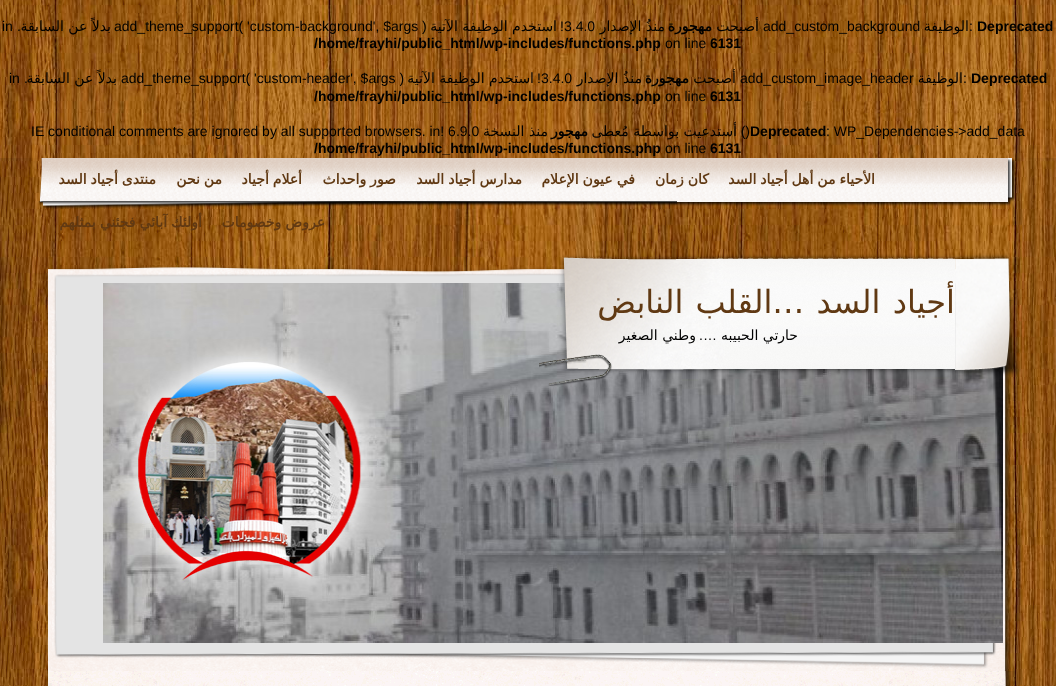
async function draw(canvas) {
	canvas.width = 1056;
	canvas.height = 686;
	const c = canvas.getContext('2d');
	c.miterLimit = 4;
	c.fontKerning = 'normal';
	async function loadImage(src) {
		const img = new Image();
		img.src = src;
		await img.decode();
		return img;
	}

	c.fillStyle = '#fff';
	c.fillRect(0, 0, 1056, 686);
	c.drawImage(await loadImage('img1.png'), 0, 0, 1056, 686);
	c.font = '14px Liberation Sans';
	c.fillStyle = '#000';
	c.fillText('in', 2, 31);
	c.direction = 'rtl';
	c.fillText('.', 21, 31);
	c.font = '14px DejaVu Sans';
	c.fillText('بدلاً عن السابقة', 111, 31);
	c.direction = 'ltr';
	c.font = '14px Liberation Sans';
	c.fillText('add_theme_support( \'custom-background\', $args )', 114, 31);
	c.direction = 'rtl';
	c.font = '14px DejaVu Sans';
	c.fillText('استخدم الوظيفة الآتية', 557, 31);
	c.font = '14px Liberation Sans';
	c.fillText('!', 564, 31);
	c.direction = 'ltr';
	c.fillText('3.4.0', 564, 31);
	c.direction = 'rtl';
	c.font = '14px DejaVu Sans';
	c.fillText('منذُ الإصدار', 665, 31);
	c.font = 'bold 14px DejaVu Sans';
	c.fillText('مهجورة', 712, 31);
	c.font = '14px DejaVu Sans';
	c.fillText('أصبحت', 759, 31);
	c.direction = 'ltr';
	c.font = '14px Liberation Sans';
	c.fillText('add_custom_background', 763, 31);
	c.direction = 'rtl';
	c.font = '14px DejaVu Sans';
	c.fillText('الوظيفة', 969, 31);
	c.direction = 'ltr';
	c.font = '14px Liberation Sans';
	c.fillText(':', 969, 31);
	c.font = 'bold 14px Liberation Sans';
	c.fillText('Deprecated', 977, 31);
	c.fillText('/home/frayhi/public_html/wp-includes/functions.php', 314, 48);
	c.font = '14px Liberation Sans';
	c.fillText('on line', 665, 48);
	c.font = 'bold 14px Liberation Sans';
	c.fillText('6131', 710, 48);
	c.font = '14px Liberation Sans';
	c.fillText('in', 9, 83);
	c.direction = 'rtl';
	c.fillText('.', 28, 83);
	c.font = '14px DejaVu Sans';
	c.fillText('بدلاً عن السابقة', 117, 83);
	c.direction = 'ltr';
	c.font = '14px Liberation Sans';
	c.fillText('add_theme_support( \'custom-header\', $args )', 121, 83);
	c.direction = 'rtl';
	c.font = '14px DejaVu Sans';
	c.fillText('استخدم الوظيفة الآتية', 534, 83);
	c.font = '14px Liberation Sans';
	c.fillText('!', 541, 83);
	c.direction = 'ltr';
	c.fillText('3.4.0', 541, 83);
	c.direction = 'rtl';
	c.font = '14px DejaVu Sans';
	c.fillText('منذُ الإصدار', 642, 83);
	c.font = 'bold 14px DejaVu Sans';
	c.fillText('مهجورة', 689, 83);
	c.font = '14px DejaVu Sans';
	c.fillText('أصبحت', 736, 83);
	c.direction = 'ltr';
	c.font = '14px Liberation Sans';
	c.fillText('add_custom_image_header', 740, 83);
	c.direction = 'rtl';
	c.font = '14px DejaVu Sans';
	c.fillText('الوظيفة', 963, 83);
	c.direction = 'ltr';
	c.font = '14px Liberation Sans';
	c.fillText(':', 963, 83);
	c.font = 'bold 14px Liberation Sans';
	c.fillText('Deprecated', 971, 83);
	c.fillText('/home/frayhi/public_html/wp-includes/functions.php', 314, 101);
	c.font = '14px Liberation Sans';
	c.fillText('on line', 665, 101);
	c.font = 'bold 14px Liberation Sans';
	c.fillText('6131', 710, 101);
	c.font = '14px Liberation Sans';
	c.fillText('IE conditional comments are ignored by all supported browsers. in! 6.9.0', 31, 136);
	c.direction = 'rtl';
	c.font = '14px DejaVu Sans';
	c.fillText('منذ النسخة', 548, 136);
	c.font = 'bold 14px DejaVu Sans';
	c.fillText('مهجور', 588, 136);
	c.font = '14px DejaVu Sans';
	c.fillText('أستدعيت بواسطة مُعطى', 737, 136);
	c.font = '14px Liberation Sans';
	c.fillText('()', 750, 136);
	c.direction = 'ltr';
	c.font = 'bold 14px Liberation Sans';
	c.fillText('Deprecated', 750, 136);
	c.font = '14px Liberation Sans';
	c.fillText(': WP_Dependencies->add_data', 826, 136);
	c.font = 'bold 14px Liberation Sans';
	c.fillText('/home/frayhi/public_html/wp-includes/functions.php', 314, 153);
	c.font = '14px Liberation Sans';
	c.fillText('on line', 665, 153);
	c.font = 'bold 14px Liberation Sans';
	c.fillText('6131', 710, 153);
	c.drawImage(await loadImage('img2.png'), 0, 158, 1056, 528);
	c.drawImage(await loadImage('img3.png'), 40, 158, 9, 44);
	c.drawImage(await loadImage('img4.png'), 1007, 158, 9, 48);
	c.drawImage(await loadImage('img5.png'), 49, 158, 958, 48);
	c.wordSpacing = '-0.5px';
	c.direction = 'rtl';
	c.font = 'bold 14px DejaVu Sans';
	c.fillStyle = '#603913';
	for (const [text, x, y] of [
		['منتدى أجياد السد', 156, 184],
		['من نحن', 222, 184],
		['أعلام أجياد', 302, 184],
		['صور واحداث', 396, 184],
		['مدارس أجياد السد', 522, 184],
		['في عيون الإعلام', 635, 184],
		['كان زمان', 709, 184],
		['الأحياء من أهل أجياد السد', 875, 184],
		['أولئك آبائي فجئني بمثلهم', 202, 227],
		['عروض وخصومات', 325, 227],
	]) {
		c.fillText(text, x, y);
	}
	c.drawImage(await loadImage('img6.png'), 38, 201, 639, 9);
	c.drawImage(await loadImage('img7.png'), 45, 300, 969, 371);
	c.drawImage(await loadImage('img8.png'), 46, 265, 967, 56);
	c.drawImage(await loadImage('img9.png'), 51, 616, 954, 55);
	c.drawImage(await loadImage('img12.png'), 103, 283, 900, 360);
	c.drawImage(await loadImage('img10.png'), 955, 253, 66, 123);
	c.drawImage(await loadImage('img11.png'), 539, 254, 416, 132);
	c.letterSpacing = '-1px';
	c.wordSpacing = '3px';
	c.font = '32px DejaVu Sans';
	c.fillText('أجياد السد …القلب النابض', 955, 313);
	c.letterSpacing = '0px';
	c.wordSpacing = '0px';
	c.font = '14px DejaVu Sans';
	c.fillStyle = '#000';
	c.fillText('وطني الصغير', 696, 340);
	c.font = '14px Liberation Sans';
	c.fillText('….', 717, 340);
	c.font = '14px DejaVu Sans';
	c.fillText('حارتي الحبيبه', 798, 340);
	c.drawImage(await loadImage('img13.png'), 46, 671, 969, 15);
}

draw(document.querySelector('canvas'));
